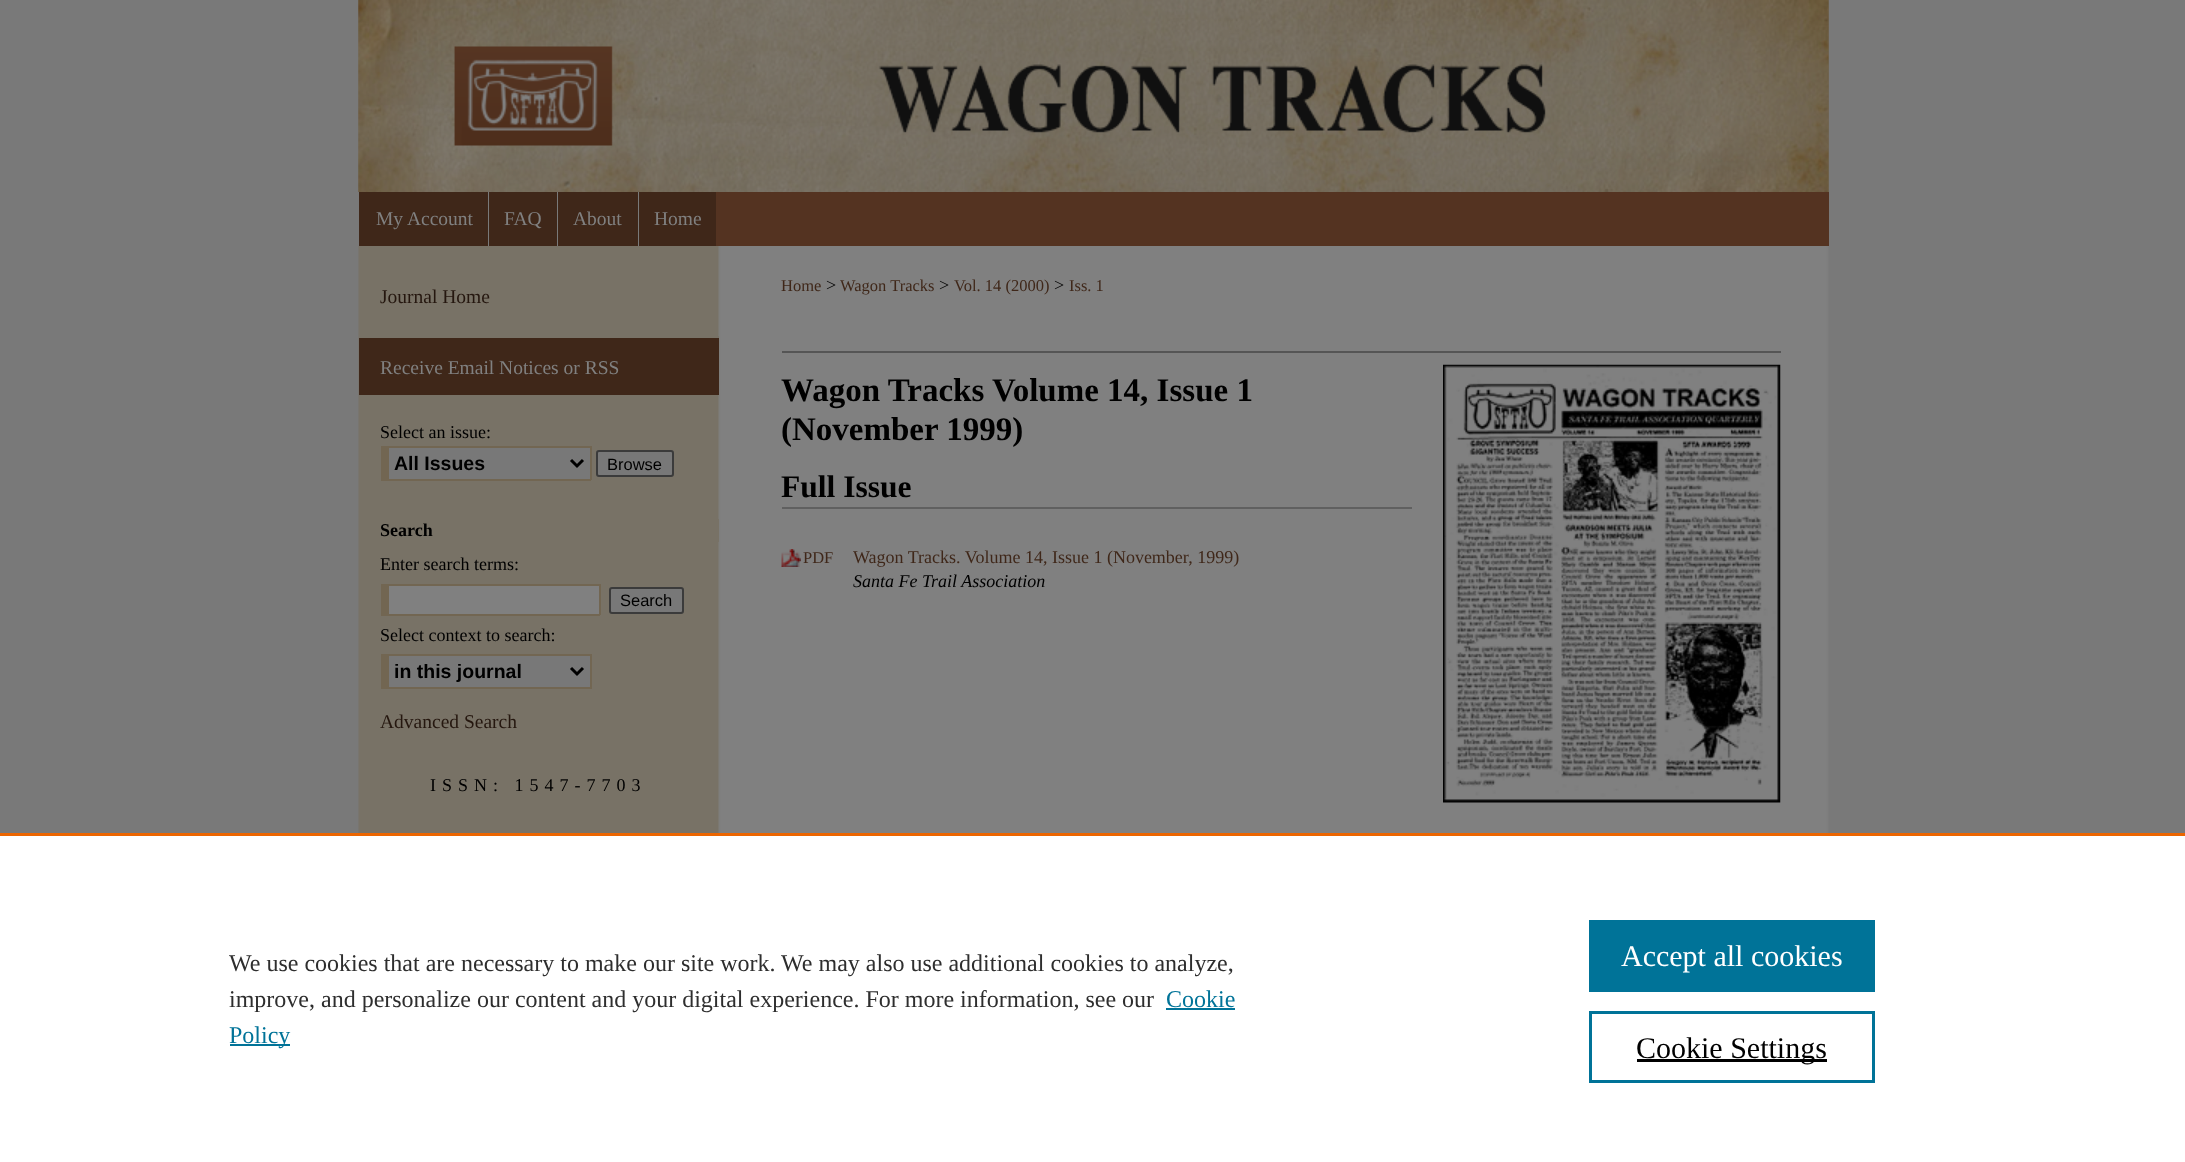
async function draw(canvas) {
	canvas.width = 2185;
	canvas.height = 1162;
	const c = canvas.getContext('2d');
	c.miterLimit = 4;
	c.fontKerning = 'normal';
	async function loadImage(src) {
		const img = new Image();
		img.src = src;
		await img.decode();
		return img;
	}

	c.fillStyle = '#797979';
	c.fillRect(0, 0, 2185, 1162);
	c.fillStyle = '#716758';
	c.fillRect(1828, 0, 1, 192);
	c.drawImage(await loadImage('img1.png'), 358, 0, 1471, 192);
	c.drawImage(await loadImage('img2.png'), 358, 0, 1, 192);
	c.fillStyle = '#543321';
	c.fillRect(716, 192, 1113, 54);
	c.fillStyle = '#3f2719';
	c.fillRect(359, 192, 129, 54);
	c.font = '19.5px Liberation Serif';
	c.fillStyle = '#808080';
	c.fillText('My Account', 376, 225);
	c.fillStyle = '#3f2719';
	c.fillRect(489, 192, 68, 54);
	c.fillStyle = '#808080';
	c.fillText('FAQ', 504, 225);
	c.fillStyle = '#3f2719';
	c.fillRect(558, 192, 80, 54);
	c.fillStyle = '#808080';
	c.fillText('About', 573, 225);
	c.fillStyle = '#3f2719';
	c.fillRect(639, 192, 77, 54);
	c.fillStyle = '#808080';
	c.fillText('Home', 654, 225);
	c.drawImage(await loadImage('img3.png'), 358, 246, 1471, 587);
	c.fillStyle = '#25170f';
	c.fillText('Journal Home', 380, 303);
	c.fillStyle = '#3f2719';
	c.fillRect(359, 338, 360, 57);
	c.fillStyle = '#787266';
	c.fillRect(718, 336, 1, 2);
	c.fillStyle = '#808080';
	c.fillText('Receive Email Notices or RSS', 380, 374);
	c.font = '18px Liberation Serif';
	c.fillStyle = '#000';
	c.fillText('Select an issue:', 380, 438);
	for (const [x, y, w, h, color] of [
		[389, 448, 201, 31, '#787878'],
		[381, 446, 210, 2, '#726652'],
		[590, 446, 2, 34, '#726652'],
		[381, 479, 210, 2, '#726652'],
		[381, 446, 8, 34, '#726652'],
	]) {
		c.fillStyle = color;
		c.fillRect(x, y, w, h);
	}
	c.beginPath();
	c.moveTo(571, 460);
	c.lineTo(577, 466);
	c.lineTo(583, 460);
	c.strokeStyle = '#000';
	c.lineWidth = 3;
	c.stroke();
	c.font = 'bold 19.5px Liberation Sans';
	c.fillStyle = '#000';
	c.fillText('All Issues', 394, 470);
	c.fillStyle = '#787878';
	c.beginPath();
	c.roundRect(597, 451, 76, 25, 2);
	c.fill();
	c.strokeStyle = '#3b3b3b';
	c.lineWidth = 2;
	c.stroke();
	c.font = '16.5px Liberation Sans';
	c.fillStyle = '#000';
	c.fillText('Browse', 607, 470);
	c.fillStyle = '#787266';
	c.fillRect(718, 519, 1, 23);
	c.font = 'bold 18px Liberation Serif';
	c.fillStyle = '#000';
	c.fillText('Search', 380, 536);
	c.font = '18px Liberation Serif';
	c.fillText('Enter search terms:', 380, 570);
	for (const [x, y, w, h, color] of [
		[389, 586, 210, 28, '#808080'],
		[381, 584, 219, 2, '#726652'],
		[599, 584, 2, 31, '#726652'],
		[381, 614, 219, 2, '#726652'],
		[381, 584, 8, 31, '#726652'],
	]) {
		c.fillStyle = color;
		c.fillRect(x, y, w, h);
	}
	c.fillStyle = '#787878';
	c.beginPath();
	c.roundRect(610, 588, 73, 25, 2);
	c.fill();
	c.stroke();
	c.font = '16.5px Liberation Sans';
	c.fillStyle = '#000';
	c.fillText('Search', 620, 606);
	c.font = '18px Liberation Serif';
	c.fillText('Select context to search:', 380, 641);
	for (const [x, y, w, h, color] of [
		[389, 656, 201, 31, '#787878'],
		[381, 654, 210, 2, '#726652'],
		[590, 654, 2, 35, '#726652'],
		[381, 687, 210, 2, '#726652'],
		[381, 654, 8, 35, '#726652'],
	]) {
		c.fillStyle = color;
		c.fillRect(x, y, w, h);
	}
	c.beginPath();
	c.moveTo(571, 668);
	c.lineTo(577, 674);
	c.lineTo(583, 668);
	c.strokeStyle = '#000';
	c.lineWidth = 3;
	c.stroke();
	c.font = 'bold 19.5px Liberation Sans';
	c.fillStyle = '#000';
	c.fillText('in this journal', 394, 678);
	c.font = '19.5px Liberation Serif';
	c.fillStyle = '#25170f';
	c.fillText('Advanced Search', 380, 728);
	c.letterSpacing = '6px';
	c.font = '18px Liberation Serif';
	c.fillStyle = '#000';
	c.fillText('ISSN: 1547-7703', 430, 791);
	c.letterSpacing = '0px';
	c.font = '16.5px Liberation Serif';
	c.fillStyle = '#3f2719';
	c.fillText('Home', 781, 291);
	c.font = '18px Liberation Serif';
	c.fillStyle = '#000';
	c.fillText('>', 826, 291);
	c.font = '16.5px Liberation Serif';
	c.fillStyle = '#3f2719';
	c.fillText('Wagon Tracks', 840, 291);
	c.font = '18px Liberation Serif';
	c.fillStyle = '#000';
	c.fillText('>', 939, 291);
	c.font = '16.5px Liberation Serif';
	c.fillStyle = '#3f2719';
	c.fillText('Vol. 14 (2000)', 954, 291);
	c.font = '18px Liberation Serif';
	c.fillStyle = '#000';
	c.fillText('>', 1054, 291);
	c.font = '16.5px Liberation Serif';
	c.fillStyle = '#3f2719';
	c.fillText('Iss. 1', 1069, 291);
	c.fillStyle = '#555';
	c.fillRect(782, 351, 999, 2);
	c.font = 'bold 33px Liberation Serif';
	c.fillStyle = '#000';
	c.fillText('Wagon Tracks Volume 14, Issue 1', 781, 401);
	c.fillText('(November 1999)', 781, 440);
	c.fillStyle = '#606060';
	c.fillRect(782, 507, 630, 2);
	c.font = 'bold 31.5px Liberation Serif';
	c.fillStyle = '#000';
	c.fillText('Full Issue', 781, 497);
	c.drawImage(await loadImage('img4.png'), 781, 549, 20, 18);
	c.font = '16.5px Liberation Serif';
	c.fillStyle = '#3f2719';
	c.fillText('PDF', 803, 563);
	c.font = '18px Liberation Serif';
	c.fillText('Wagon Tracks. Volume 14, Issue 1 (November, 1999)', 853, 563);
	c.font = 'italic 18px Liberation Serif';
	c.fillStyle = '#000';
	c.fillText('Santa Fe Trail Association', 853, 587);
	c.drawImage(await loadImage('img5.png'), 1443, 364, 338, 439);
	c.fillStyle = '#fff';
	c.fillRect(0, 836, 2185, 326);
	c.fillStyle = '#eb6500';
	c.fillRect(0, 833, 2185, 3);
	c.font = '24px Liberation Serif';
	c.fillStyle = '#2e2e2e';
	c.fillText('We use cookies that are necessary to make our site work. We may also use additional cookies to analyze,', 229, 971);
	c.fillText('improve, and personalize our content and your digital experience. For more information, see our', 229, 1007);
	c.fillStyle = '#007398';
	c.fillText('Cookie', 1166, 1007);
	c.fillRect(1166, 1008, 69, 2);
	c.fillRect(230, 1044, 60, 2);
	c.fillText('Policy', 229, 1043);
	c.fillRect(1589, 920, 286, 72);
	c.font = '30px Liberation Serif';
	c.fillStyle = '#fff';
	c.fillText('Accept all cookies', 1621, 966);
	c.strokeStyle = '#007398';
	c.strokeRect(1590.5, 1012.5, 283, 69);
	c.fillStyle = '#000';
	c.fillRect(1637, 1059, 190, 3);
	c.fillText('Cookie Settings', 1636, 1058);
}

draw(document.querySelector('canvas'));
